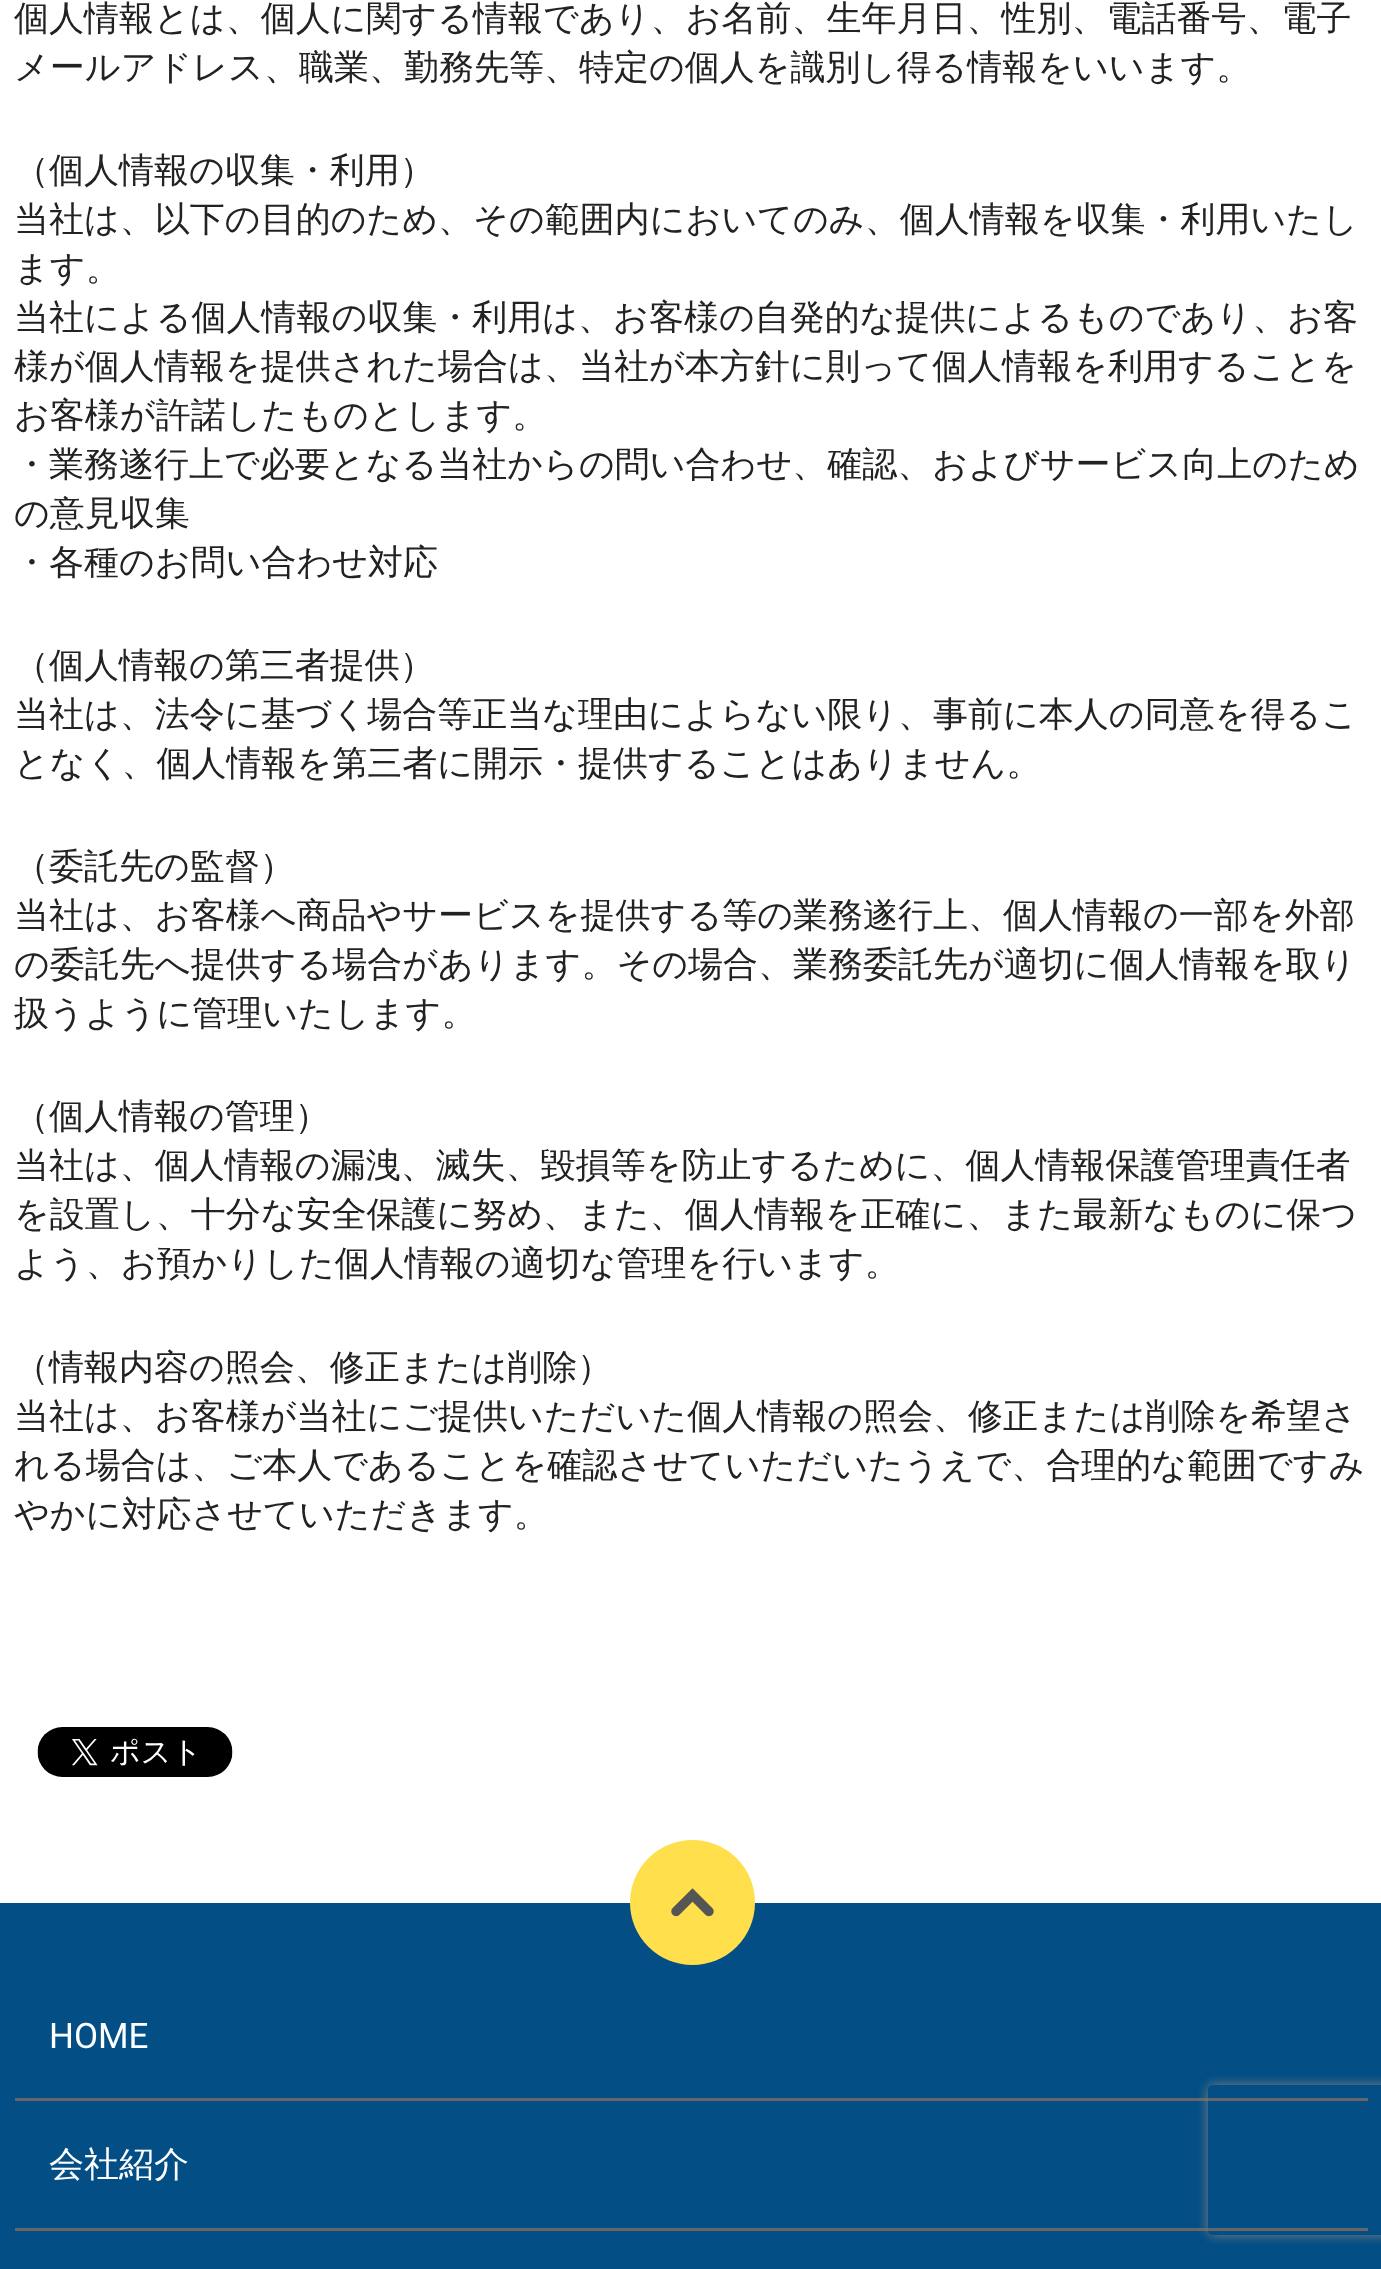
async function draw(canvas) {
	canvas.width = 1381;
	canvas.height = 2269;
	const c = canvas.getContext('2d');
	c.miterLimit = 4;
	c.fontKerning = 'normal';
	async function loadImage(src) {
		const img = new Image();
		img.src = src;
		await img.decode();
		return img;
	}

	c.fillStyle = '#fff';
	c.fillRect(0, 0, 1381, 2269);
	c.font = '500 35px WenQuanYi Zen Hei';
	c.fillStyle = '#222';
	for (const [text, x, y] of [
		['個人情報とは、個人に関する情報であり、お名前、生年月日、性別、電話番号、電子', 14, 30],
		['メールアドレス、職業、勤務先等、特定の個人を識別し得る情報をいいます。', 14, 79],
		['（個人情報の収集・利用）', 14, 182],
		['当社は、以下の目的のため、その範囲内においてのみ、個人情報を収集・利用いたし', 14, 231],
		['ます。', 14, 280],
		['当社による個人情報の収集・利用は、お客様の自発的な提供によるものであり、お客', 14, 329],
		['様が個人情報を提供された場合は、当社が本方針に則って個人情報を利用することを', 14, 378],
		['お客様が許諾したものとします。', 14, 427],
		['・業務遂行上で必要となる当社からの問い合わせ、確認、およびサービス向上のため', 14, 476],
		['の意見収集', 14, 525],
		['・各種のお問い合わせ対応', 14, 574],
		['（個人情報の第三者提供）', 14, 677],
		['当社は、法令に基づく場合等正当な理由によらない限り、事前に本人の同意を得るこ', 14, 726],
		['となく、個人情報を第三者に開示・提供することはありません。', 14, 775],
		['（委託先の監督）', 14, 878],
		['当社は、お客様へ商品やサービスを提供する等の業務遂行上、個人情報の一部を外部', 14, 927],
		['の委託先へ提供する場合があります。その場合、業務委託先が適切に個人情報を取り', 14, 976],
		['扱うように管理いたします。', 14, 1025],
		['（個人情報の管理）', 14, 1128],
		['当社は、個人情報の漏洩、滅失、毀損等を防止するために、個人情報保護管理責任者', 14, 1177],
		['を設置し、十分な安全保護に努め、また、個人情報を正確に、また最新なものに保つ', 14, 1226],
		['よう、お預かりした個人情報の適切な管理を行います。', 14, 1275],
		['（情報内容の照会、修正または削除）', 14, 1379],
		['当社は、お客様が当社にご提供いただいた個人情報の照会、修正または削除を希望さ', 14, 1428],
		['れる場合は、ご本人であることを確認させていただいたうえで、合理的な範囲ですみ', 14, 1477],
		['やかに対応させていただきます。', 14, 1526],
	]) {
		c.fillText(text, x, y);
	}
	c.drawImage(await loadImage('img1.png'), 37, 1727, 196, 50);
	c.fillStyle = '#024e85';
	c.fillRect(0, 1903, 1381, 366);
	c.fillStyle = '#ffdf4b';
	c.beginPath();
	c.arc(692.5, 1902.5, 62.5, 0, 2 * Math.PI);
	c.fill();
	c.drawImage(await loadImage('img2.png'), 671, 1888, 43, 29);
	c.font = '35px Roboto';
	c.fillStyle = '#fff';
	c.fillText('HOME', 49, 2048);
	c.fillStyle = '#666';
	c.fillRect(15, 2098, 1353, 3);
	c.font = '500 35px WenQuanYi Zen Hei';
	c.fillStyle = '#fff';
	c.fillText('会社紹介', 49, 2176);
	c.fillStyle = '#666';
	c.fillRect(15, 2228, 1353, 3);
	c.save();
	c.beginPath();
	c.moveTo(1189, 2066);
	c.lineTo(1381, 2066);
	c.lineTo(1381, 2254);
	c.lineTo(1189, 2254);
	c.closePath();
	c.moveTo(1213, 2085);
	c.lineTo(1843, 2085);
	c.bezierCurveTo(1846, 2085, 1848, 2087, 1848, 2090);
	c.lineTo(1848, 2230);
	c.bezierCurveTo(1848, 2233, 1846, 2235, 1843, 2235);
	c.lineTo(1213, 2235);
	c.bezierCurveTo(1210, 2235, 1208, 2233, 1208, 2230);
	c.lineTo(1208, 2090);
	c.bezierCurveTo(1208, 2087, 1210, 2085, 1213, 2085);
	c.closePath();
	c.clip('evenodd');
	c.fillStyle = '#808080';
	c.filter = 'blur(6px)';
	c.beginPath();
	c.roundRect(1208, 2085, 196, 150, 5);
	c.fill();
	c.filter = 'none';
	c.restore();
}

draw(document.querySelector('canvas'));
